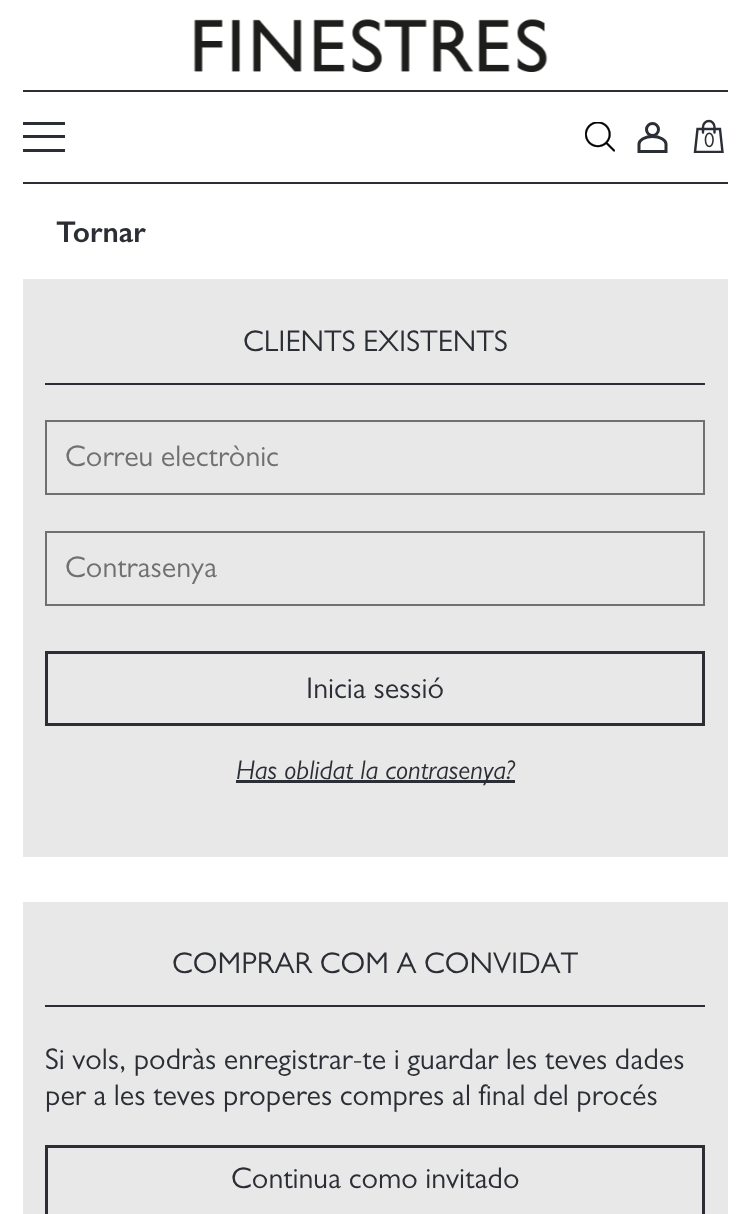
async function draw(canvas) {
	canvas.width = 749;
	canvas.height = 1214;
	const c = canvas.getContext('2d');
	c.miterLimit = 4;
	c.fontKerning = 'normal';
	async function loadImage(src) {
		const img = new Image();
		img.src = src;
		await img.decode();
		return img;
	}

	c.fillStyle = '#fff';
	c.fillRect(0, 0, 749, 1214);
	c.drawImage(await loadImage('img1.png'), 193, 19, 355, 53);
	for (const [x, y, w, h, color] of [
		[23, 90, 705, 2, '#2b2e34'],
		[23, 182, 705, 2, '#2b2e34'],
		[23, 122, 42, 3, '#2b2e34'],
		[23, 135, 42, 3, '#2b2e34'],
		[23, 149, 42, 3, '#2b2e34'],
	]) {
		c.fillStyle = color;
		c.fillRect(x, y, w, h);
	}
	c.drawImage(await loadImage('img2.png'), 585, 122, 30, 30);
	c.beginPath();
	c.arc(652.5, 129.5, 6, 0, 2 * Math.PI);
	c.strokeStyle = '#2b2e34';
	c.lineWidth = 3;
	c.stroke();
	c.beginPath();
	c.moveTo(652.5, 136.5);
	c.bezierCurveTo(660, 136.5, 666, 140, 666, 144);
	c.lineTo(666, 151.5);
	c.lineTo(639, 151.5);
	c.lineTo(639, 144);
	c.bezierCurveTo(639, 140, 645, 136.5, 652.5, 136.5);
	c.closePath();
	c.stroke();
	c.save();
	c.beginPath();
	c.rect(690, 120, 38, 33);
	c.clip();
	c.beginPath();
	c.moveTo(697.5, 129);
	c.lineTo(695, 152);
	c.lineTo(722.5, 152);
	c.lineTo(720, 129);
	c.closePath();
	c.lineWidth = 2.4;
	c.lineCap = 'round';
	c.stroke();
	c.restore();
	c.beginPath();
	c.moveTo(714.5, 132.5);
	c.lineTo(714.5, 127);
	c.bezierCurveTo(714.5, 124, 712, 121, 709, 121);
	c.bezierCurveTo(705.5, 121, 703, 124, 703, 127);
	c.lineTo(703, 132.5);
	c.lineWidth = 2.4;
	c.lineCap = 'round';
	c.stroke();
	c.font = '300 21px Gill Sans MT';
	c.fillText('0', 704, 147);
	c.font = '600 30px Gill Sans';
	c.fillText('Tornar', 56, 242);
	c.fillStyle = '#e8e8e8';
	c.fillRect(23, 279, 705, 578);
	c.fillStyle = '#2b2e34';
	c.fillRect(45, 383, 660, 2);
	c.font = '300 30px Gill Sans MT';
	c.fillText('CLIENTS EXISTENTS', 243, 351);
	c.strokeStyle = '#707070';
	c.lineWidth = 2;
	c.strokeRect(46, 421, 658, 73);
	c.fillStyle = '#707070';
	c.fillText('Correu electrònic', 65, 466);
	c.strokeRect(46, 532, 658, 73);
	c.fillText('Contrasenya', 65, 577);
	c.strokeStyle = '#2b2e34';
	c.lineWidth = 3;
	c.strokeRect(46.5, 652.5, 657, 72);
	c.fillStyle = '#2b2e34';
	c.fillText('Inicia sessió', 306, 698);
	c.fillRect(236, 780, 279, 3);
	c.font = 'italic 300 27px Gill Sans MT';
	c.fillText('Has oblidat la contrasenya?', 236, 779);
	c.fillStyle = '#e8e8e8';
	c.fillRect(23, 902, 705, 312);
	c.fillStyle = '#2b2e34';
	c.fillRect(45, 1005, 660, 2);
	c.font = '300 30px Gill Sans MT';
	for (const [text, x, y] of [
		['COMPRAR COM A CONVIDAT', 172, 973],
		['Si vols, podràs enregistrar-te i guardar les teves dades', 45, 1069],
		['per a les teves properes compres al final del procés', 45, 1105],
	]) {
		c.fillText(text, x, y);
	}
	c.strokeRect(46.5, 1146.5, 657, 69);
	c.fillText('Continua como invitado', 231, 1188);
}

draw(document.querySelector('canvas'));
